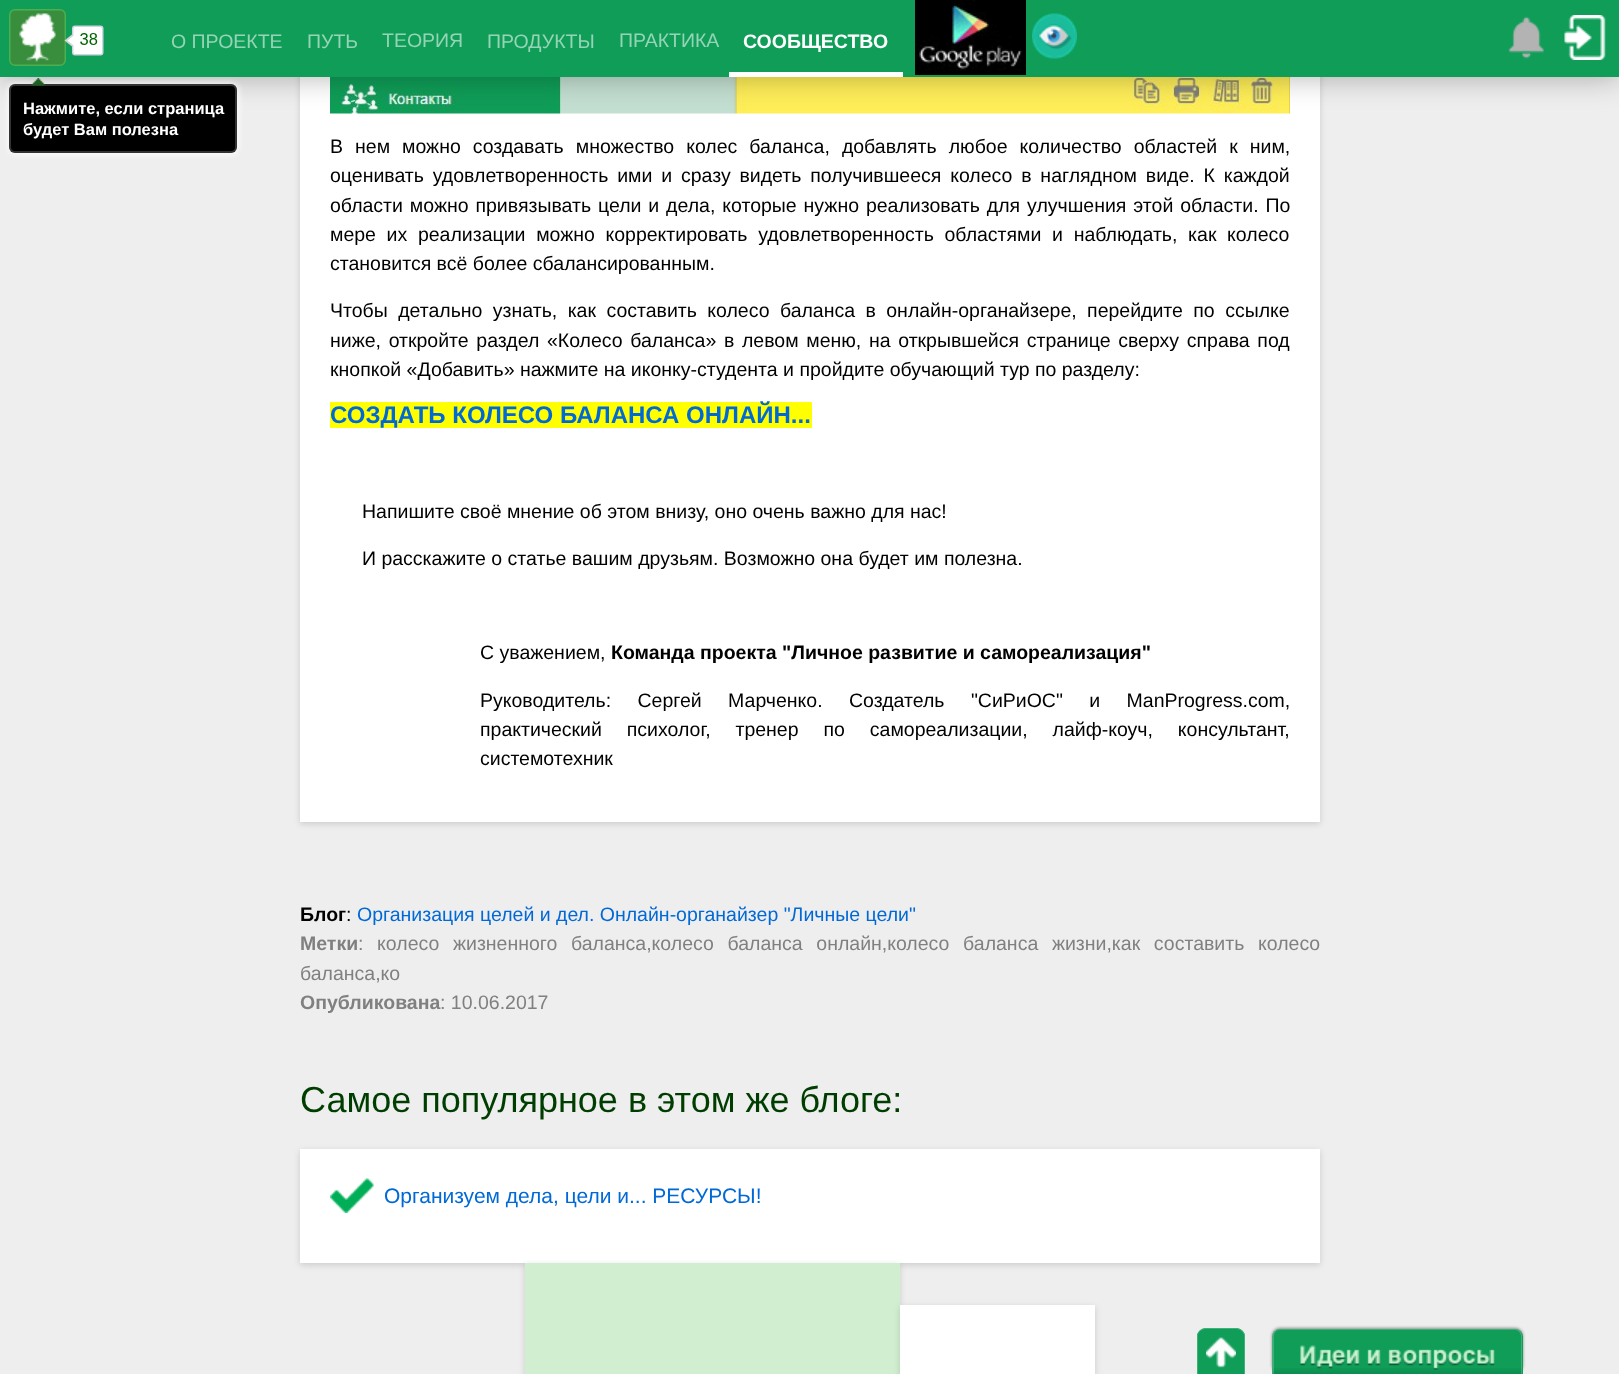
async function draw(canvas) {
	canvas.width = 1619;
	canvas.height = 1374;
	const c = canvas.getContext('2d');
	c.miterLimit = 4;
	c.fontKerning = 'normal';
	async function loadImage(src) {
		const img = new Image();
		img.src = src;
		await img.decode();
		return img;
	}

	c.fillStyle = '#eee';
	c.fillRect(0, 0, 1619, 1374);
	c.fillStyle = '#00000024';
	c.filter = 'blur(3px)';
	c.beginPath();
	c.rect(300, -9, 1020, 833);
	c.fill();
	c.filter = 'none';
	c.fillStyle = '#fff';
	c.fillRect(300, 77, 1020, 745);
	c.drawImage(await loadImage('img7.png'), 330, 77, 960, 37);
	c.fillStyle = '#0000004d';
	c.filter = 'blur(15px)';
	c.beginPath();
	c.rect(0, 0, 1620, 77);
	c.fill();
	c.filter = 'none';
	c.fillStyle = '#0f9d58';
	c.fillRect(0, 0, 1619, 77);
	c.drawImage(await loadImage('img1.png'), 9, 9, 95, 57);
	c.font = '19.5px Liberation Sans';
	c.fillStyle = '#95d4b6';
	for (const [text, x, y] of [
		['О ПРОЕКТЕ', 171, 48],
		['ПУТЬ', 307, 48],
		['ТЕОРИЯ', 382, 47],
		['ПРОДУКТЫ', 487, 48],
		['ПРАКТИКА', 619, 47],
	]) {
		c.fillText(text, x, y);
	}
	c.fillStyle = '#fff';
	c.fillRect(729, 72, 174, 5);
	c.font = 'bold 19.5px Liberation Sans';
	c.fillText('СООБЩЕСТВО', 743, 48);
	c.drawImage(await loadImage('img2.png'), 915, 0, 111, 75);
	c.drawImage(await loadImage('img3.png'), 1032, 13, 45, 46);
	c.drawImage(await loadImage('img4.png'), 1508, 16, 36, 43);
	c.drawImage(await loadImage('img5.png'), 1564, 15, 42, 45);
	c.fillStyle = '#ffffffcc';
	c.filter = 'blur(3px)';
	c.beginPath();
	c.roundRect(8, 83, 231, 72, 8);
	c.fill();
	c.filter = 'none';
	c.fillStyle = '#000';
	c.beginPath();
	c.roundRect(9, 84, 228, 69, 6);
	c.fill();
	c.beginPath();
	c.roundRect(10, 85, 226, 67, 5);
	c.strokeStyle = '#ffffff33';
	c.lineWidth = 2;
	c.stroke();
	c.drawImage(await loadImage('img6.png'), 31, 78, 15, 8);
	c.font = 'bold 16.5px Liberation Sans';
	c.fillStyle = '#fff';
	c.fillText('Нажмите, если страница', 23, 114);
	c.fillText('будет Вам полезна', 23, 135);
	c.wordSpacing = '6.6px';
	c.font = '19.5px Liberation Sans';
	c.fillStyle = '#000';
	c.fillText('В нем можно создавать множество колес баланса, добавлять любое количество областей к ним,', 330, 153);
	c.wordSpacing = '3.4px';
	c.fillText('оценивать удовлетворенность ими и сразу видеть получившееся колесо в наглядном виде. К каждой', 330, 182);
	c.wordSpacing = '1.5px';
	c.fillText('области можно привязывать цели и дела, которые нужно реализовать для улучшения этой области. По', 330, 212);
	c.wordSpacing = '5.25px';
	c.fillText('мере их реализации можно корректировать удовлетворенность областями и наблюдать, как колесо', 330, 241);
	c.wordSpacing = '0px';
	c.fillText('становится всё более сбалансированным.', 330, 270);
	c.wordSpacing = '5px';
	c.fillText('Чтобы детально узнать, как составить колесо баланса в онлайн-органайзере, перейдите по ссылке', 330, 317);
	c.wordSpacing = '2.25px';
	c.fillText('ниже, откройте раздел «Колесо баланса» в левом меню, на открывшейся странице сверху справа под', 330, 347);
	c.wordSpacing = '0px';
	c.fillText('кнопкой «Добавить» нажмите на иконку-студента и пройдите обучающий тур по разделу:', 330, 376);
	c.fillStyle = '#ff0';
	c.fillRect(330, 402, 482, 26);
	c.font = 'bold 24px Liberation Sans';
	c.fillStyle = '#0069d6';
	c.fillText('СОЗДАТЬ КОЛЕСО БАЛАНСА ОНЛАЙН...', 330, 423);
	c.font = '19.5px Liberation Sans';
	c.fillStyle = '#000';
	for (const [text, x, y] of [
		['Напишите своё мнение об этом внизу, оно очень важно для нас!', 362, 518],
		['И расскажите о статье вашим друзьям. Возможно она будет им полезна.', 362, 565],
		['С уважением,', 480, 659],
	]) {
		c.fillText(text, x, y);
	}
	c.font = 'bold 19.5px Liberation Sans';
	c.fillText('Команда проекта "Личное развитие и самореализация"', 611, 659);
	c.wordSpacing = '21px';
	c.font = '19.5px Liberation Sans';
	c.fillText('Руководитель: Сергей Марченко. Создатель "СиРиОС" и ManProgress.com,', 480, 707);
	c.wordSpacing = '19.5px';
	c.fillText('практический психолог, тренер по самореализации, лайф-коуч, консультант,', 480, 736);
	c.wordSpacing = '0px';
	c.fillText('системотехник', 480, 765);
	c.font = 'bold 19.5px Liberation Sans';
	c.fillText('Блог', 300, 921);
	c.font = '19.5px Liberation Sans';
	c.fillText(':', 346, 921);
	c.fillStyle = '#0069d6';
	c.fillText('Организация целей и дел. Онлайн-органайзер "Личные цели"', 357, 921);
	c.font = 'bold 19.5px Liberation Sans';
	c.fillStyle = '#808080';
	c.fillText('Метки', 300, 950);
	c.wordSpacing = '8.25px';
	c.font = '19.5px Liberation Sans';
	c.fillText(': колесо жизненного баланса,колесо баланса онлайн,колесо баланса жизни,как составить колесо', 358, 950);
	c.wordSpacing = '0px';
	c.fillText('баланса,ко', 300, 980);
	c.font = 'bold 19.5px Liberation Sans';
	c.fillText('Опубликована', 300, 1009);
	c.font = '19.5px Liberation Sans';
	c.fillText(': 10.06.2017', 440, 1009);
	c.font = '36px Liberation Sans';
	c.fillStyle = '#003d00';
	c.fillText('Самое популярное в этом же блоге:', 300, 1112);
	c.fillStyle = '#00000024';
	c.filter = 'blur(3px)';
	c.beginPath();
	c.rect(300, 1151, 1020, 114);
	c.fill();
	c.filter = 'none';
	c.fillStyle = '#fff';
	c.fillRect(300, 1149, 1020, 114);
	c.drawImage(await loadImage('img8.png'), 330, 1178, 44, 35);
	c.font = '21px Liberation Sans';
	c.fillStyle = '#0069d6';
	c.fillText('Организуем дела, цели и... РЕСУРСЫ!', 384, 1203);
	c.fillStyle = '#00000024';
	c.filter = 'blur(3px)';
	c.beginPath();
	c.rect(525, 1265, 375, 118);
	c.fill();
	c.filter = 'none';
	c.fillStyle = '#d1eed1';
	c.fillRect(525, 1263, 375, 111);
	c.fillStyle = '#00000024';
	c.filter = 'blur(3px)';
	c.beginPath();
	c.rect(900, 1307, 195, 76);
	c.fill();
	c.filter = 'none';
	c.fillStyle = '#fff';
	c.fillRect(900, 1305, 195, 69);
	c.fillStyle = '#0f9d58';
	c.beginPath();
	c.roundRect(1197, 1328, 48, 46, [9, 9, 0, 0]);
	c.fill();
	c.drawImage(await loadImage('img9.png'), 1206, 1337, 30, 31);
	c.fillStyle = '#3fb079';
	c.beginPath();
	c.moveTo(1206, 1328);
	c.lineTo(1236, 1328);
	c.bezierCurveTo(1241, 1328, 1245, 1332, 1245, 1336);
	c.lineTo(1245, 1374);
	c.lineTo(1197, 1374);
	c.lineTo(1197, 1336);
	c.bezierCurveTo(1197, 1332, 1201, 1328, 1206, 1328);
	c.closePath();
	c.moveTo(1206, 1329);
	c.lineTo(1236, 1329);
	c.bezierCurveTo(1240, 1329, 1244, 1332, 1244, 1336);
	c.lineTo(1244, 1374);
	c.lineTo(1198, 1374);
	c.lineTo(1198, 1336);
	c.bezierCurveTo(1198, 1332, 1202, 1329, 1206, 1329);
	c.closePath();
	c.fill('evenodd');
	c.fillStyle = '#888';
	c.filter = 'blur(1.5px)';
	c.beginPath();
	c.roundRect(1272, 1328, 251, 45, 8);
	c.fill();
	c.filter = 'none';
	c.fillStyle = '#0f9d58';
	c.beginPath();
	c.roundRect(1272, 1329, 251, 45, [8, 8, 0, 0]);
	c.fill();
	c.drawImage(await loadImage('img10.png'), 1272, 1368, 250, 6);
	c.fillStyle = '#ffffff33';
	c.beginPath();
	c.moveTo(1280, 1329);
	c.lineTo(1515, 1329);
	c.bezierCurveTo(1519, 1329, 1522, 1332, 1522, 1336);
	c.lineTo(1522, 1374);
	c.lineTo(1272, 1374);
	c.lineTo(1272, 1336);
	c.bezierCurveTo(1272, 1332, 1275, 1329, 1280, 1329);
	c.closePath();
	c.moveTo(1280, 1330);
	c.lineTo(1515, 1330);
	c.bezierCurveTo(1518, 1330, 1521, 1333, 1521, 1336);
	c.lineTo(1521, 1374);
	c.lineTo(1274, 1374);
	c.lineTo(1274, 1336);
	c.bezierCurveTo(1274, 1333, 1276, 1330, 1280, 1330);
	c.closePath();
	c.fill('evenodd');
	c.drawImage(await loadImage('img11.png'), 1300, 1345, 195, 25);
}

draw(document.querySelector('canvas'));
